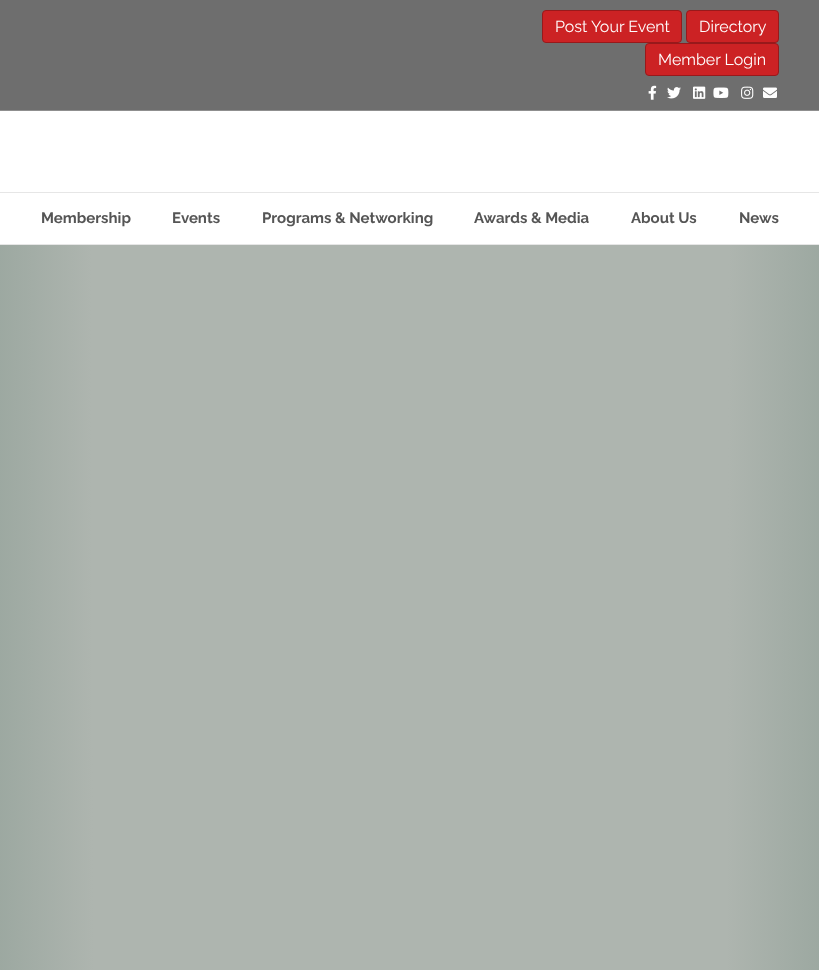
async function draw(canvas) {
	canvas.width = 819;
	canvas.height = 970;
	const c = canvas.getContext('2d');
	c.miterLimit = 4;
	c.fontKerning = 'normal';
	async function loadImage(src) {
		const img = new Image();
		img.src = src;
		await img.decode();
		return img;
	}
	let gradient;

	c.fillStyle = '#6e6e6e';
	c.fillRect(0, 0, 819, 970);
	c.fillStyle = '#8f8f8f';
	c.fillRect(0, 110, 819, 1);
	c.fillStyle = '#cc2224';
	c.beginPath();
	c.roundRect(542.5, 10.5, 139, 32, 3.5);
	c.fill();
	c.strokeStyle = '#98191b';
	c.stroke();
	c.font = '16px Raleway';
	c.fillStyle = '#fff';
	c.fillText('Post Your Event', 555, 32);
	c.fillStyle = '#cc2224';
	c.beginPath();
	c.roundRect(686.5, 10.5, 92, 32, 3.5);
	c.fill();
	c.stroke();
	c.fillStyle = '#fff';
	c.fillText('Directory', 699, 32);
	c.fillStyle = '#cc2224';
	c.beginPath();
	c.roundRect(645.5, 43.5, 133, 32, 3.5);
	c.fill();
	c.stroke();
	c.fillStyle = '#fff';
	c.fillText('Member Login', 658, 65);
	c.drawImage(await loadImage('img1.png'), 648, 85, 9, 15);
	c.drawImage(await loadImage('img2.png'), 667, 87, 14, 12);
	c.drawImage(await loadImage('img3.png'), 693, 86, 13, 13);
	c.drawImage(await loadImage('img4.png'), 713, 87, 16, 11);
	c.drawImage(await loadImage('img5.png'), 741, 86, 13, 13);
	c.drawImage(await loadImage('img6.png'), 763, 87, 14, 11);
	for (const [x, y, w, h, color] of [
		[0, 111, 819, 133, '#fff'],
		[0, 192, 819, 1, '#e6e6e6'],
		[0, 244, 819, 1, '#e6e6e6'],
	]) {
		c.fillStyle = color;
		c.fillRect(x, y, w, h);
	}
	c.font = 'bold 15px Raleway';
	c.fillStyle = '#555';
	for (const [text, x, y] of [
		['Membership', 41, 223],
		['Events', 172, 223],
		['Programs & Networking', 262, 223],
		['Awards & Media', 474, 223],
		['About Us', 631, 223],
		['News', 739, 223],
	]) {
		c.fillText(text, x, y);
	}
	gradient = c.createRadialGradient(410, 12.94, 0, 410, 12.94, 579);
	gradient.addColorStop(0.55, '#aeb5af');
	gradient.addColorStop(0.88, '#8a9b92');
	c.fillStyle = gradient;
	c.beginPath();
	c.rect(0, 245, 819, 725);
	c.save();
	c.clip();
	c.scale(1, 10962 / 579);
	c.fillRect(0, 0, 819, 52);
	c.restore();
}

draw(document.querySelector('canvas'));
